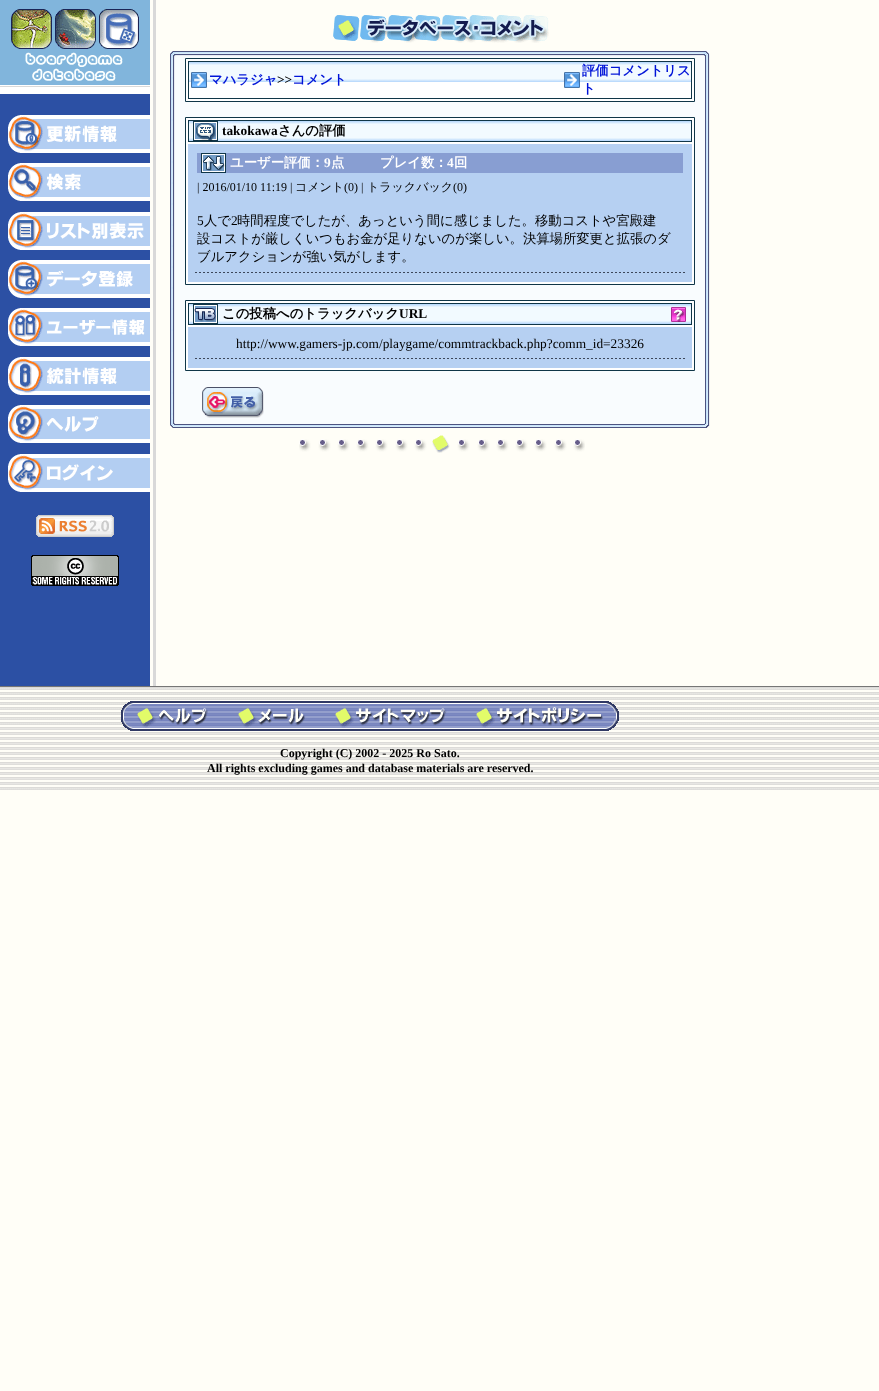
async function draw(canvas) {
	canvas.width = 879;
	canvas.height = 1391;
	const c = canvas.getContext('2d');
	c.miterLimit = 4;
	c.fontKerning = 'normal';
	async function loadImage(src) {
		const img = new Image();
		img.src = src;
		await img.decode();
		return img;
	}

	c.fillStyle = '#fffef7';
	c.fillRect(0, 0, 879, 1391);
	c.fillStyle = '#2c50a4';
	c.fillRect(0, 94, 150, 592);
	c.drawImage(await loadImage('img1.png'), 0, 0, 150, 94);
	c.drawImage(await loadImage('img2.png'), 8, 115, 142, 38);
	c.drawImage(await loadImage('img3.png'), 8, 163, 142, 38);
	c.drawImage(await loadImage('img4.png'), 8, 212, 142, 38);
	c.drawImage(await loadImage('img5.png'), 8, 260, 142, 38);
	c.drawImage(await loadImage('img6.png'), 8, 308, 142, 38);
	c.drawImage(await loadImage('img7.png'), 8, 357, 142, 38);
	c.drawImage(await loadImage('img8.png'), 8, 405, 142, 38);
	c.drawImage(await loadImage('img9.png'), 8, 454, 142, 38);
	c.drawImage(await loadImage('img10.png'), 36, 515, 78, 22);
	c.drawImage(await loadImage('img11.png'), 31, 555, 88, 31);
	c.fillStyle = '#d9d9d9';
	c.fillRect(153, 0, 3, 686);
	c.drawImage(await loadImage('img12.png'), 333, 15, 216, 28);
	c.drawImage(await loadImage('img13.png'), 170, 51, 7, 7);
	c.drawImage(await loadImage('img14.png'), 177, 51, 526, 7);
	c.drawImage(await loadImage('img15.png'), 703, 50, 7, 8);
	c.drawImage(await loadImage('img16.png'), 170, 58, 7, 360);
	c.fillStyle = '#f9fcfe';
	c.fillRect(177, 58, 526, 360);
	c.fillStyle = '#fff';
	c.beginPath();
	c.rect(185.5, 58.5, 509, 43);
	c.fill();
	c.strokeStyle = '#103648';
	c.stroke();
	c.drawImage(await loadImage('img17.png'), 189, 62, 502, 20);
	c.strokeRect(188.5, 61.5, 503, 37);
	c.drawImage(await loadImage('img18.png'), 191, 72, 16, 16);
	c.font = 'bold 13.35px WenQuanYi Zen Hei';
	c.fillStyle = '#0014d8';
	c.fillText('マハラジャ', 209, 84);
	c.font = 'bold 13.35px Liberation Serif';
	c.fillStyle = '#000';
	c.fillText('>>', 277, 84);
	c.font = 'bold 13.35px WenQuanYi Zen Hei';
	c.fillStyle = '#0014d8';
	c.fillText('コメント', 292, 84);
	c.drawImage(await loadImage('img18.png'), 564, 72, 16, 16);
	c.fillText('評価コメントリス', 582, 75);
	c.fillText('ト', 582, 93);
	c.fillStyle = '#fff';
	c.beginPath();
	c.rect(185.5, 117.5, 509, 167);
	c.fill();
	c.stroke();
	c.drawImage(await loadImage('img17.png'), 189, 121, 502, 20);
	c.strokeRect(188.5, 120.5, 503, 21);
	c.drawImage(await loadImage('img19.png'), 193, 121, 25, 20);
	c.font = 'bold 13.35px Liberation Serif';
	c.fillStyle = '#000';
	c.fillText('takokawa', 222, 135);
	c.font = 'bold 13.35px WenQuanYi Zen Hei';
	c.fillText('さんの評価', 278, 135);
	c.fillStyle = '#b6d0f2';
	c.fillRect(188, 144, 504, 138);
	c.fillStyle = '#889ed2';
	c.fillRect(197, 153, 486, 20);
	c.drawImage(await loadImage('img20.png'), 201, 153, 25, 20);
	c.fillStyle = '#fff';
	c.fillText('ユーザー評価：', 230, 167);
	c.font = 'bold 13.35px Liberation Serif';
	c.fillText('9', 324, 167);
	c.font = 'bold 13.35px WenQuanYi Zen Hei';
	c.fillText('点', 331, 167);
	c.fillText('プレイ数：', 380, 167);
	c.font = 'bold 13.35px Liberation Serif';
	c.fillText('4', 447, 167);
	c.font = 'bold 13.35px WenQuanYi Zen Hei';
	c.fillText('回', 454, 167);
	c.font = '12px Liberation Serif';
	c.fillStyle = '#000';
	c.fillText('| 2016/01/10 11:19 |', 197, 191);
	c.font = '500 12px WenQuanYi Zen Hei';
	c.fillText('コメント', 295, 191);
	c.font = '12px Liberation Serif';
	c.fillText('(0) |', 344, 191);
	c.font = '500 12px WenQuanYi Zen Hei';
	c.fillText('トラックバック', 367, 191);
	c.font = '12px Liberation Serif';
	c.fillText('(0)', 453, 191);
	c.font = '13.35px Liberation Serif';
	c.fillText('5', 197, 225);
	c.font = '500 13.35px WenQuanYi Zen Hei';
	c.fillText('人で', 204, 225);
	c.font = '13.35px Liberation Serif';
	c.fillText('2', 231, 225);
	c.font = '500 13.35px WenQuanYi Zen Hei';
	for (const [text, x, y] of [
		['時間程度でしたが、あっという間に感じました。移動コストや宮殿建', 237, 225],
		['設コストが厳しくいつもお金が足りないのが楽しい。決算場所変更と拡張のダ', 197, 243],
		['ブルアクションが強い気がします。', 197, 261],
	]) {
		c.fillText(text, x, y);
	}
	c.drawImage(await loadImage('img21.png'), 195, 272, 490, 1);
	c.fillStyle = '#fff';
	c.beginPath();
	c.rect(185.5, 300.5, 509, 70);
	c.fill();
	c.stroke();
	c.drawImage(await loadImage('img17.png'), 189, 304, 502, 20);
	c.strokeRect(188.5, 303.5, 503, 21);
	c.drawImage(await loadImage('img22.png'), 193, 304, 25, 20);
	c.font = 'bold 13.35px WenQuanYi Zen Hei';
	c.fillStyle = '#000';
	c.fillText('この投稿へのトラックバック', 222, 318);
	c.font = 'bold 13.35px Liberation Serif';
	c.fillText('URL', 399, 318);
	c.drawImage(await loadImage('img23.png'), 671, 307, 15, 15);
	c.fillStyle = '#b6d0f2';
	c.fillRect(188, 327, 504, 41);
	c.font = '13.35px Liberation Serif';
	c.fillStyle = '#000';
	c.fillText('http://www.gamers-jp.com/playgame/commtrackback.php?comm_id=23326', 236, 348);
	c.drawImage(await loadImage('img21.png'), 195, 358, 490, 1);
	c.drawImage(await loadImage('img24.png'), 202, 387, 62, 31);
	c.drawImage(await loadImage('img25.png'), 703, 58, 7, 360);
	c.drawImage(await loadImage('img26.png'), 170, 418, 7, 10);
	c.drawImage(await loadImage('img27.png'), 177, 418, 526, 10);
	c.drawImage(await loadImage('img28.png'), 703, 418, 7, 10);
	c.drawImage(await loadImage('img29.png'), 299, 435, 286, 18);
	c.drawImage(await loadImage('img30.png'), 0, 686, 879, 104);
	c.drawImage(await loadImage('img31.png'), 121, 701, 102, 30);
	c.drawImage(await loadImage('img32.png'), 223, 701, 98, 30);
	c.drawImage(await loadImage('img33.png'), 321, 701, 141, 30);
	c.drawImage(await loadImage('img34.png'), 462, 701, 157, 30);
	c.font = 'bold 12px Liberation Serif';
	c.fillText('Copyright (C) 2002 - 2025 Ro Sato.', 280, 757);
	c.fillText('All rights excluding games and database materials are reserved.', 207, 772);
}

draw(document.querySelector('canvas'));
